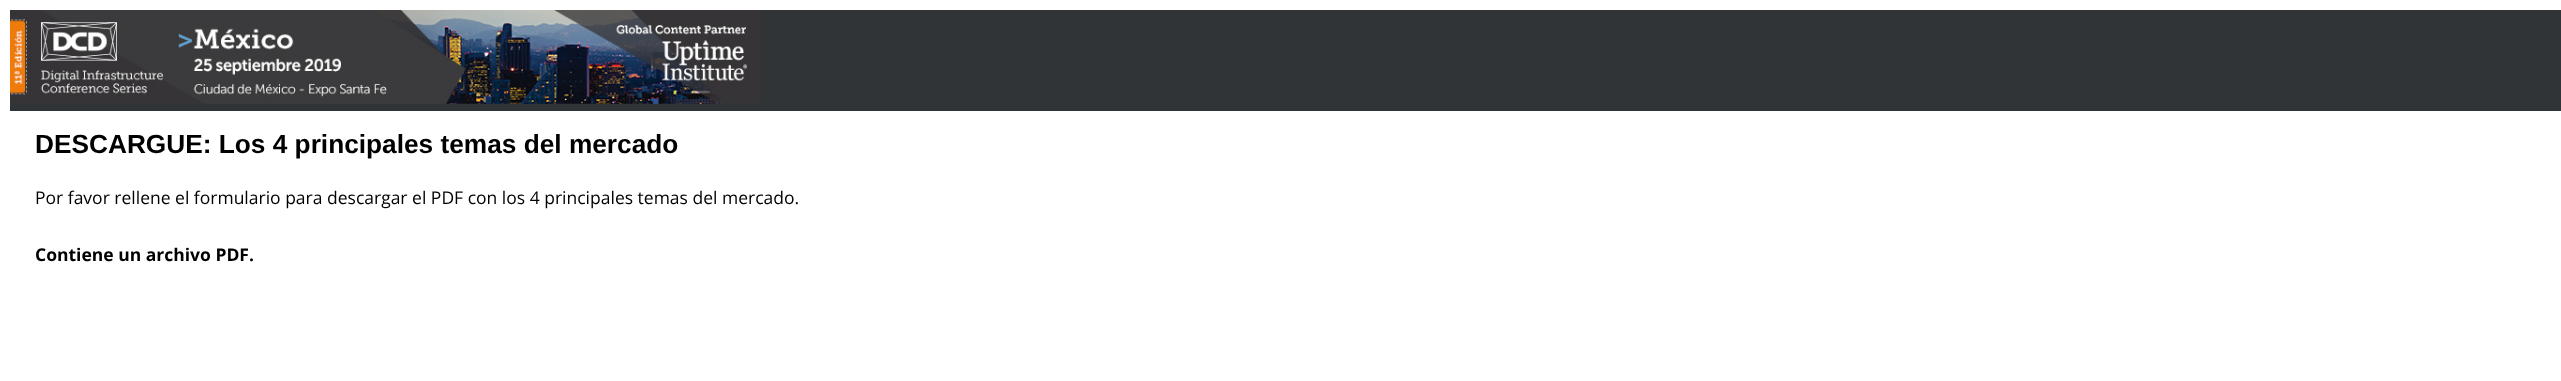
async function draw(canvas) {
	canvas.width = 2561;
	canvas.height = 381;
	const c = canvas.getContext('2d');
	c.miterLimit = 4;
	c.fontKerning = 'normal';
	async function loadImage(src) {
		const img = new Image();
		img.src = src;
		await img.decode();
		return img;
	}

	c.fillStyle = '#fff';
	c.fillRect(0, 0, 2561, 381);
	c.fillStyle = '#313437';
	c.fillRect(10, 10, 2551, 101);
	c.drawImage(await loadImage('img1.png'), 10, 10, 750, 94);
	c.font = 'bold 26.25px Liberation Sans';
	c.fillStyle = '#000';
	c.fillText('DESCARGUE: Los 4 principales temas del mercado', 35, 153);
	c.font = '17.5px Open Sans';
	c.fillText('Por favor rellene el formulario para descargar el PDF con los 4 principales temas del mercado.', 35, 204);
	c.font = 'bold 17.5px Open Sans';
	c.fillText('Contiene un archivo PDF.', 35, 261);
}

draw(document.querySelector('canvas'));
